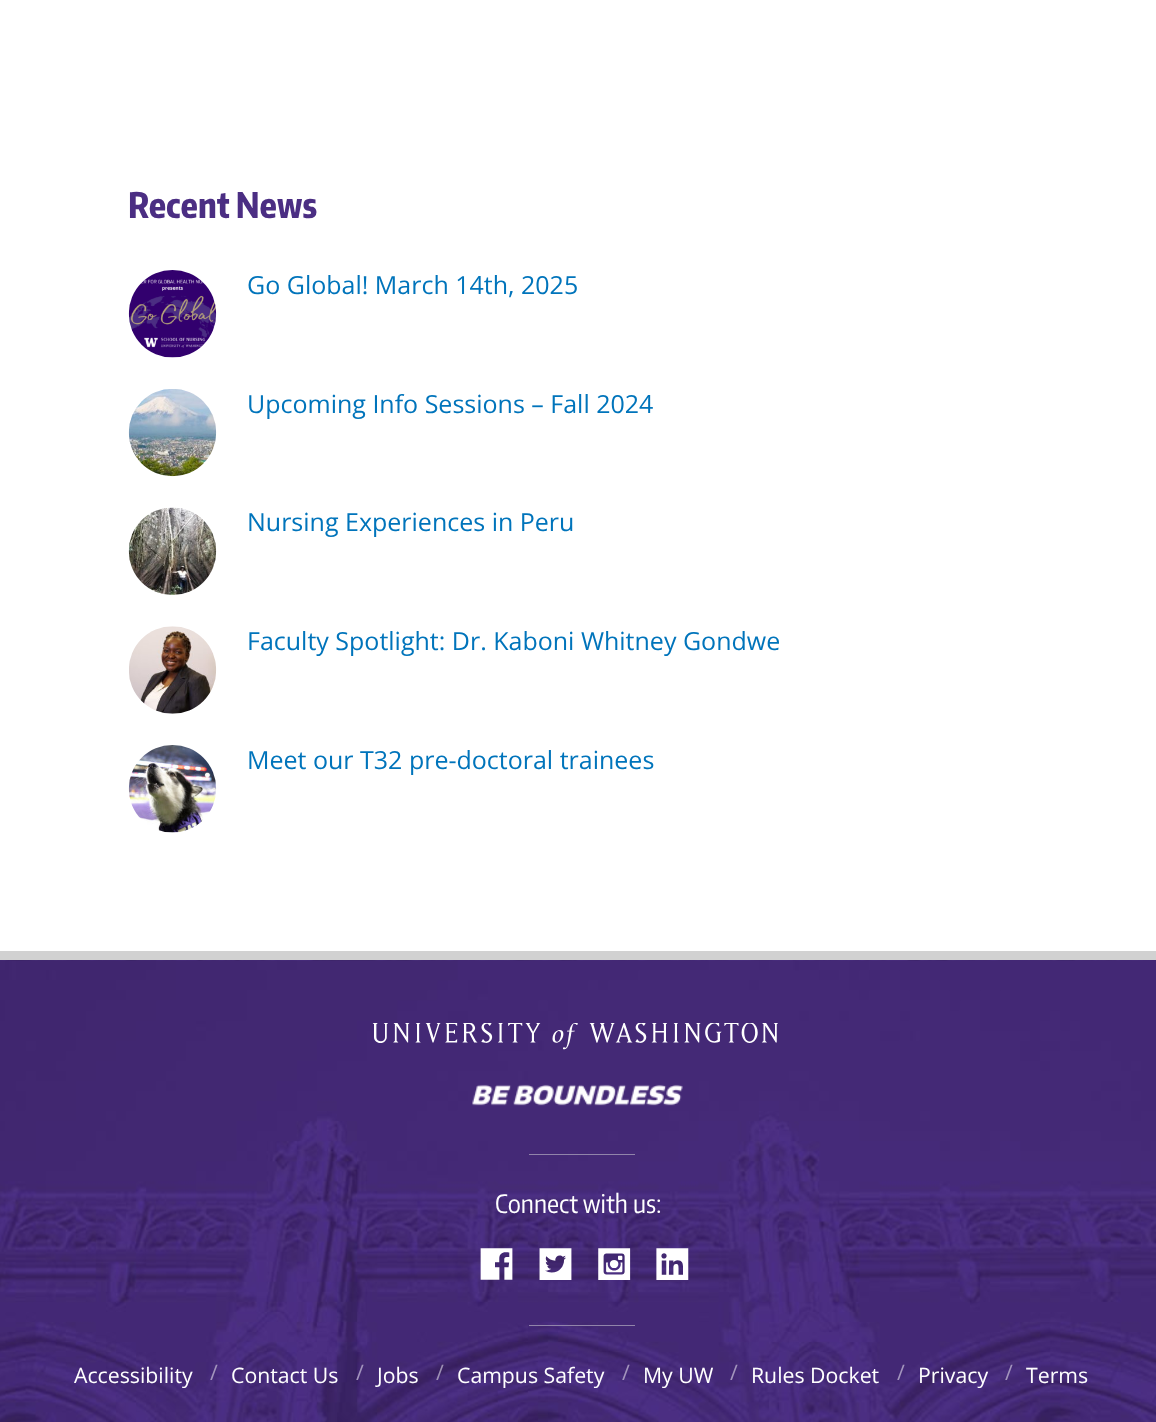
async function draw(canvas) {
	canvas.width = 1156;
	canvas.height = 1422;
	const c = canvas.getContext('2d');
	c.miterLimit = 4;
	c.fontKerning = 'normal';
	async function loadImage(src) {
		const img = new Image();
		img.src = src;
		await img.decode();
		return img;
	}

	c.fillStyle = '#fff';
	c.fillRect(0, 0, 1156, 1422);
	c.font = '800 35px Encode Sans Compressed';
	c.fillStyle = '#4b2e83';
	c.fillText('Recent News', 128, 218);
	c.drawImage(await loadImage('img1.png'), 128, 270, 89, 88);
	c.font = '25px Open Sans';
	c.fillStyle = '#0074bb';
	c.fillText('Go Global! March 14th, 2025', 247, 294);
	c.drawImage(await loadImage('img2.png'), 128, 389, 89, 88);
	c.fillText('Upcoming Info Sessions – Fall 2024', 247, 413);
	c.drawImage(await loadImage('img3.png'), 128, 507, 89, 88);
	c.fillText('Nursing Experiences in Peru', 247, 531);
	c.drawImage(await loadImage('img4.png'), 129, 626, 88, 88);
	c.fillText('Faculty Spotlight: Dr. Kaboni Whitney Gondwe', 247, 650);
	c.drawImage(await loadImage('img5.png'), 128, 745, 89, 88);
	c.fillText('Meet our T32 pre-doctoral trainees', 247, 769);
	c.drawImage(await loadImage('img6.png'), 0, 960, 1156, 462);
	c.fillStyle = '#d1d1d1';
	c.fillRect(0, 951, 1156, 9);
	c.drawImage(await loadImage('img7.png'), 372, 1023, 406, 27);
	c.drawImage(await loadImage('img8.png'), 472, 1084, 211, 22);
	c.fillStyle = '#9184aa';
	c.fillRect(529, 1154, 106, 1);
	c.font = '25px Encode Sans Condensed';
	c.fillStyle = '#fff';
	c.fillText('Connect with us:', 495, 1213);
	c.fillStyle = '#9184aa';
	c.fillRect(529, 1325, 106, 1);
	c.drawImage(await loadImage('img9.png'), 480, 1248, 33, 32);
	c.drawImage(await loadImage('img10.png'), 539, 1248, 33, 32);
	c.drawImage(await loadImage('img11.png'), 598, 1248, 33, 32);
	c.drawImage(await loadImage('img12.png'), 656, 1248, 33, 32);
	c.font = '21.25px Open Sans';
	c.fillStyle = '#fff';
	c.fillText('Accessibility', 74, 1383);
	c.fillStyle = '#a395bd';
	c.fillText('/', 210, 1380);
	c.fillStyle = '#fff';
	c.fillText('Contact Us', 231, 1383);
	c.fillStyle = '#a395bd';
	c.fillText('/', 356, 1380);
	c.fillStyle = '#fff';
	c.fillText('Jobs', 377, 1383);
	c.fillStyle = '#9e91b4';
	c.fillText('/', 436, 1380);
	c.fillStyle = '#fff';
	c.fillText('Campus Safety', 457, 1383);
	c.fillStyle = '#a395bd';
	c.fillText('/', 622, 1380);
	c.fillStyle = '#fff';
	c.fillText('My UW', 643, 1383);
	c.fillStyle = '#a395bd';
	c.fillText('/', 730, 1380);
	c.fillStyle = '#fff';
	c.fillText('Rules Docket', 751, 1383);
	c.fillStyle = '#a395bd';
	c.fillText('/', 897, 1380);
	c.fillStyle = '#fff';
	c.fillText('Privacy', 918, 1383);
	c.fillStyle = '#a395bd';
	c.fillText('/', 1005, 1380);
	c.fillStyle = '#fff';
	c.fillText('Terms', 1026, 1383);
}

draw(document.querySelector('canvas'));
